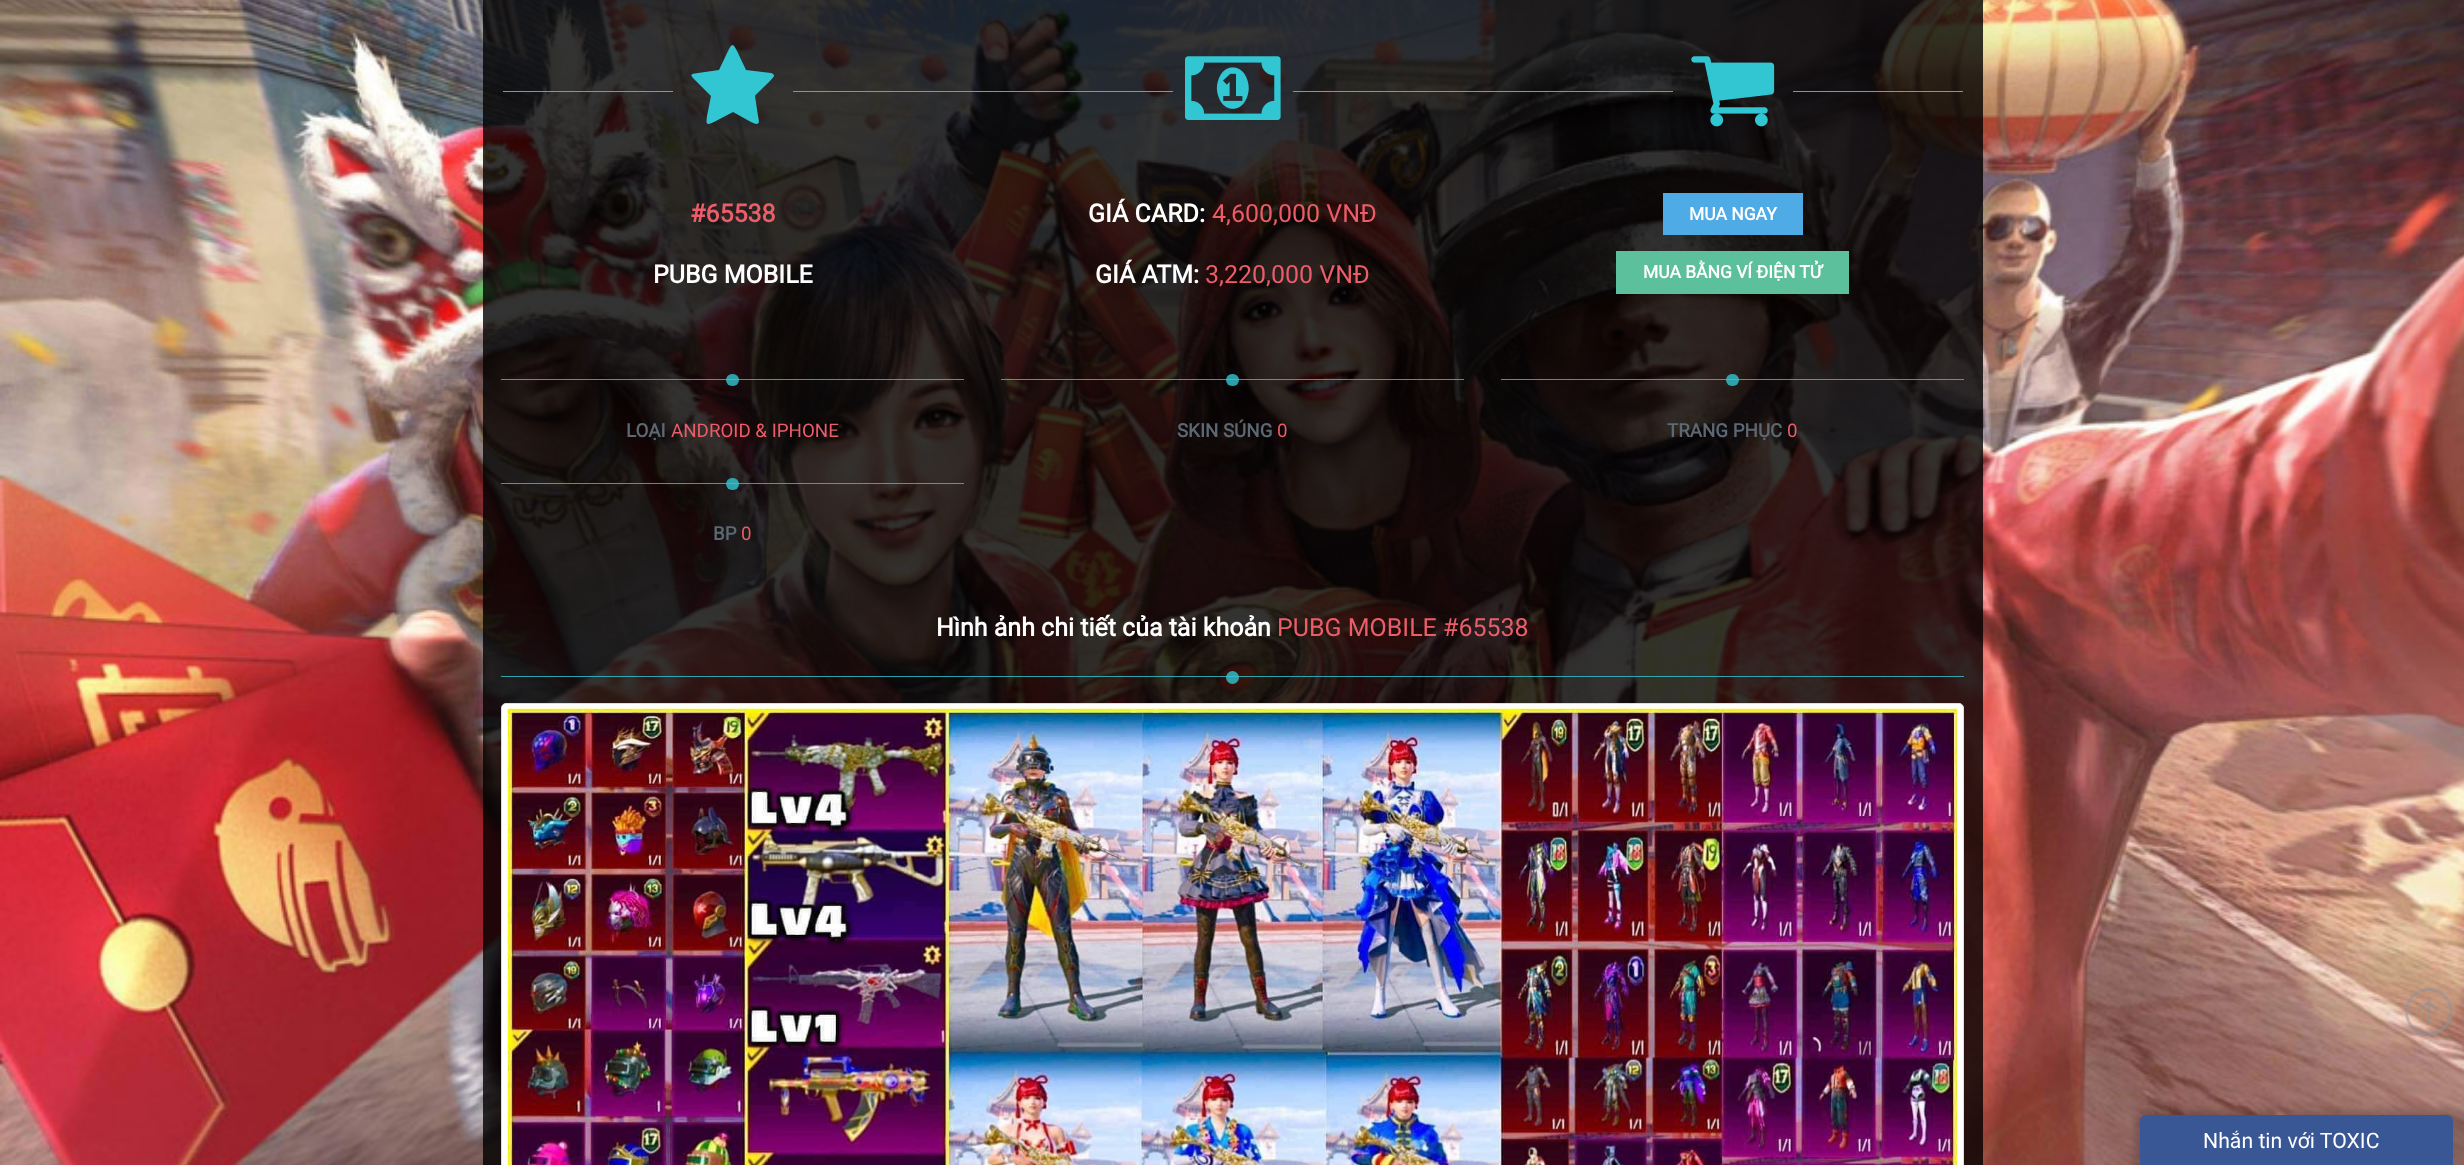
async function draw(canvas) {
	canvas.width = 2464;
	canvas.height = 1165;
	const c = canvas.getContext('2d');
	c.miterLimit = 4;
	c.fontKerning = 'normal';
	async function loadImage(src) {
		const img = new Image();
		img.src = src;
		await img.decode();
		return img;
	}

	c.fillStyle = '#fff';
	c.fillRect(0, 0, 2464, 1165);
	c.drawImage(await loadImage('img1.png'), 0, 0, 2464, 1165);
	c.fillStyle = '#000000cc';
	c.fillRect(483, 0, 1500, 1165);
	c.fillStyle = '#919191';
	c.fillRect(503, 91, 170, 1);
	c.fillStyle = '#32c5d2';
	c.beginPath();
	c.moveTo(774, 76);
	c.bezierCurveTo(774, 78, 757, 93, 755, 96);
	c.lineTo(758, 116);
	c.bezierCurveTo(760, 124, 759, 126, 751, 122);
	c.lineTo(733, 112);
	c.lineTo(714, 122);
	c.bezierCurveTo(706, 126, 706, 124, 707, 116);
	c.lineTo(711, 96);
	c.lineTo(696, 81);
	c.bezierCurveTo(690, 75, 689, 74, 698, 73);
	c.lineTo(719, 70);
	c.lineTo(728, 51);
	c.bezierCurveTo(732, 43, 733, 43, 737, 51);
	c.lineTo(746, 70);
	c.lineTo(771, 73);
	c.bezierCurveTo(773, 74, 774, 74, 774, 76);
	c.closePath();
	c.fill();
	c.fillStyle = '#919191';
	c.fillRect(793, 91, 380, 1);
	c.font = 'bold 25px Roboto';
	c.fillStyle = '#eb5d68';
	c.fillText('#65538', 690, 222);
	c.fillStyle = '#fff';
	c.fillText('PUBG MOBILE', 653, 283);
	c.drawImage(await loadImage('img2.png'), 1185, 56, 96, 64);
	c.fillStyle = '#919191';
	c.fillRect(1293, 91, 380, 1);
	c.fillStyle = '#fff';
	c.fillText('GIÁ CARD:', 1088, 222);
	c.font = '25px Roboto';
	c.fillStyle = '#eb5d68';
	c.fillText('4,600,000 VNĐ', 1212, 222);
	c.font = 'bold 25px Roboto';
	c.fillStyle = '#fff';
	c.fillText('GIÁ ATM:', 1095, 283);
	c.font = '25px Roboto';
	c.fillStyle = '#eb5d68';
	c.fillText('3,220,000 VNĐ', 1205, 283);
	c.drawImage(await loadImage('img3.png'), 1691, 56, 84, 71);
	c.fillStyle = '#919191';
	c.fillRect(1793, 91, 170, 1);
	c.fillStyle = '#4eabe6';
	c.fillRect(1663, 193, 140, 42);
	c.font = 'bold 17.5px Roboto';
	c.fillStyle = '#fff';
	c.fillText('MUA NGAY', 1689, 220);
	c.fillStyle = '#5dc09c';
	c.fillRect(1616, 251, 233, 43);
	c.fillStyle = '#fff';
	c.fillText('MUA BẰNG VÍ ĐIỆN TỬ', 1643, 278);
	c.fillStyle = '#32c5d2cc';
	c.fillRect(501, 379, 463, 1);
	c.beginPath();
	c.roundRect(726, 374, 13, 12, 6);
	c.fill();
	c.font = 'bold 18.75px Roboto';
	c.fillStyle = '#5c6873';
	c.fillText('LOẠI', 626, 437);
	c.font = '18.75px Roboto';
	c.fillStyle = '#eb5d68';
	c.fillText('ANDROID & IPHONE', 671, 437);
	c.fillStyle = '#32c5d2cc';
	c.fillRect(1001, 379, 463, 1);
	c.beginPath();
	c.roundRect(1226, 374, 13, 12, 6);
	c.fill();
	c.font = 'bold 18.75px Roboto';
	c.fillStyle = '#5c6873';
	c.fillText('SKIN SÚNG', 1177, 437);
	c.font = '18.75px Roboto';
	c.fillStyle = '#eb5d68';
	c.fillText('0', 1277, 437);
	c.fillStyle = '#32c5d2cc';
	c.fillRect(1501, 379, 463, 1);
	c.beginPath();
	c.roundRect(1726, 374, 13, 12, 6);
	c.fill();
	c.font = 'bold 18.75px Roboto';
	c.fillStyle = '#5c6873';
	c.fillText('TRANG PHỤC', 1667, 437);
	c.font = '18.75px Roboto';
	c.fillStyle = '#eb5d68';
	c.fillText('0', 1787, 437);
	c.fillStyle = '#32c5d2cc';
	c.fillRect(501, 483, 463, 1);
	c.beginPath();
	c.roundRect(726, 478, 13, 12, 6);
	c.fill();
	c.font = 'bold 18.75px Roboto';
	c.fillStyle = '#5c6873';
	c.fillText('BP', 713, 540);
	c.font = '18.75px Roboto';
	c.fillStyle = '#eb5d68';
	c.fillText('0', 741, 540);
	c.font = 'bold 25px Roboto';
	c.fillStyle = '#fff';
	c.fillText('Hình ảnh chi tiết của tài khoản', 936, 636);
	c.font = '25px Roboto';
	c.fillStyle = '#eb5d68';
	c.fillText('PUBG MOBILE #65538', 1277, 636);
	c.fillStyle = '#32c5d2cc';
	c.fillRect(501, 676, 1463, 1);
	c.beginPath();
	c.arc(1232.5, 677.5, 6.5, 0, 2 * Math.PI);
	c.fill();
	c.fillStyle = '#fff';
	c.beginPath();
	c.roundRect(501.5, 703.5, 1462, 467, 4.5);
	c.fill();
	c.strokeStyle = '#ddd';
	c.stroke();
	c.drawImage(await loadImage('img4.png'), 507, 708, 1451, 457);
	c.drawImage(await loadImage('img5.png'), 2405, 988, 48, 48);
	c.fillStyle = '#00000033';
	c.filter = 'blur(4px)';
	c.beginPath();
	c.roundRect(2135, 1110, 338, 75, 19);
	c.fill();
	c.filter = 'none';
	c.fillStyle = '#3a5795';
	c.beginPath();
	c.roundRect(2140, 1115, 313, 50, [6, 6, 0, 0]);
	c.fill();
	c.font = '21.25px Roboto';
	c.fillStyle = '#fff';
	c.fillText('Nhắn tin với TOXIC', 2203, 1148);
}

draw(document.querySelector('canvas'));
